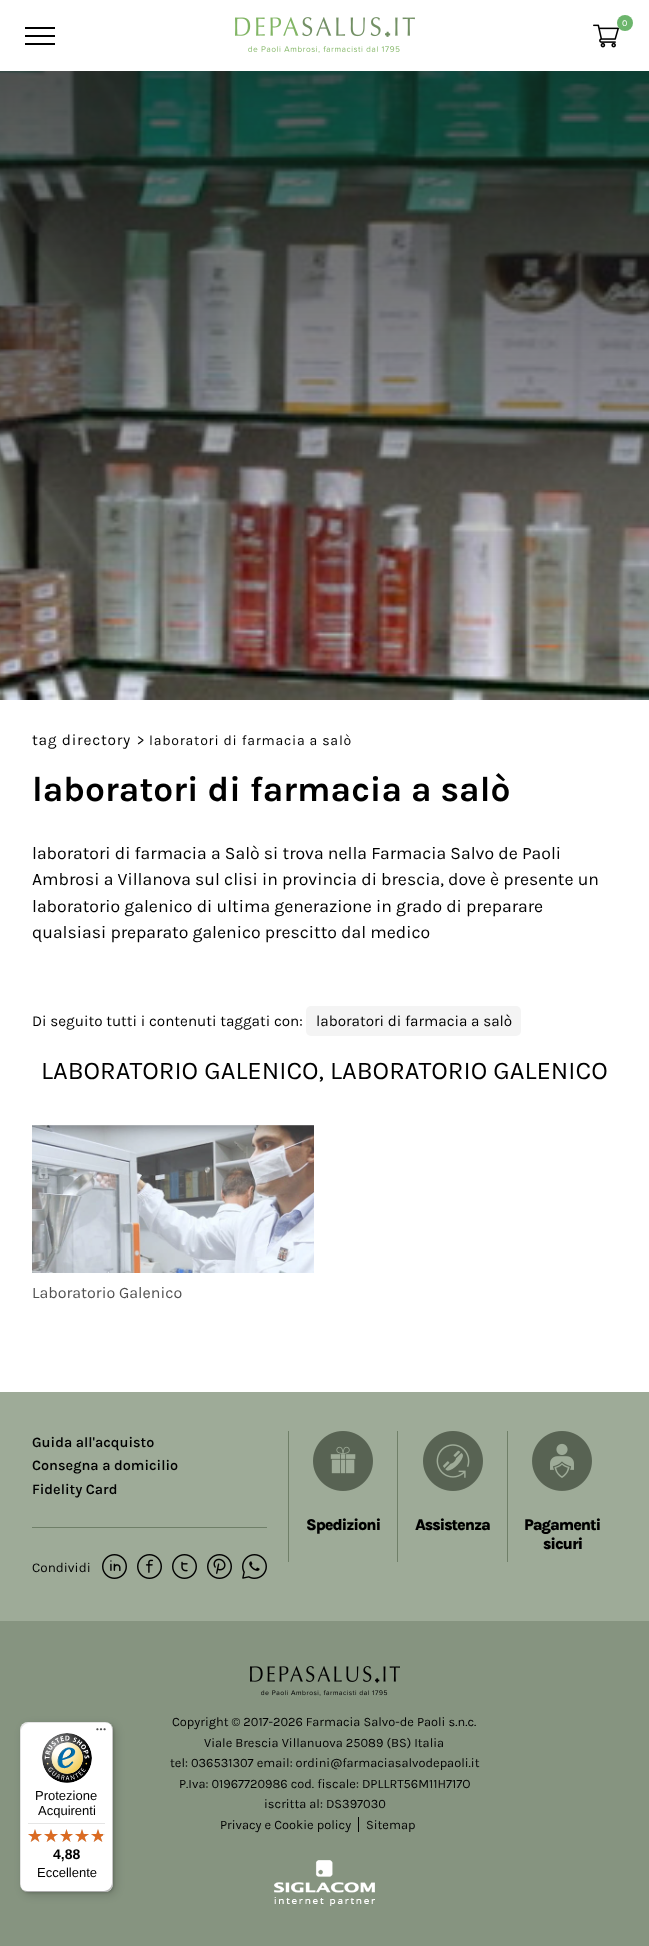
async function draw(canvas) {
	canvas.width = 649;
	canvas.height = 1946;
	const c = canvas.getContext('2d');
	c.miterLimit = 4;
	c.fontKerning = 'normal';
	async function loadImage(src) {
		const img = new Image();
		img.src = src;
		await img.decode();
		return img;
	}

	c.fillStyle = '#fff';
	c.fillRect(0, 0, 649, 1946);
	c.drawImage(await loadImage('img1.png'), 235, 17, 180, 36);
	c.drawImage(await loadImage('img2.png'), 593, 24, 26, 24);
	c.fillStyle = '#6cb56c';
	c.beginPath();
	c.arc(625, 23, 8, 0, 2 * Math.PI);
	c.fill();
	c.font = '9px Karla';
	c.fillStyle = '#fff';
	c.fillText('0', 622, 26);
	for (const [x, y, w, h, color] of [
		[25, 27, 30, 2, '#000'],
		[25, 35, 30, 2, '#000'],
		[25, 43, 30, 2, '#000'],
	]) {
		c.fillStyle = color;
		c.fillRect(x, y, w, h);
	}
	c.drawImage(await loadImage('img3.png'), 0, 71, 649, 629);
	c.letterSpacing = '0.75px';
	c.font = '15.5px Karla';
	c.fillText('tag directory', 32, 745);
	c.fillText('>', 137, 745);
	c.font = '14.1px Karla';
	c.fillText('laboratori di farmacia a salò', 149, 745);
	c.letterSpacing = '0px';
	c.font = 'bold 35.25px Karla';
	c.fillText('laboratori di farmacia a salò', 32, 801);
	c.font = '17.6px Karla';
	for (const [text, x, y] of [
		['laboratori di farmacia a Salò si trova nella Farmacia Salvo de Paoli', 32, 859],
		['Ambrosi a Villanova sul clisi in provincia di brescia, dove è presente un', 32, 885],
		['laboratorio galenico di ultima generazione in grado di preparare', 32, 912],
		['qualsiasi preparato galenico prescitto dal medico', 32, 938],
	]) {
		c.fillText(text, x, y);
	}
	c.font = '15.25px Karla';
	c.fillText('Di seguito tutti i contenuti taggati con:', 32, 1026);
	c.fillStyle = '#f4f4f4';
	c.beginPath();
	c.roundRect(306, 1006, 215, 30, 5);
	c.fill();
	c.fillStyle = '#000';
	c.fillText('laboratori di farmacia a salò', 316, 1026);
	c.font = '25.6px Karla';
	c.fillText('LABORATORIO GALENICO, LABORATORIO GALENICO', 41, 1079);
	c.drawImage(await loadImage('img4.png'), 32, 1125, 282, 148);
	c.font = '16px Karla';
	c.fillStyle = '#515151';
	c.fillText('Laboratorio Galenico', 32, 1298);
	c.fillStyle = '#9eab98';
	c.fillRect(0, 1392, 649, 229);
	c.font = '600 14.4px Karla';
	c.fillStyle = '#000';
	for (const [text, x, y] of [
		['Guida all\'acquisto', 32, 1447],
		['Consegna a domicilio', 32, 1470],
		['Fidelity Card', 32, 1494],
	]) {
		c.fillText(text, x, y);
	}
	c.fillStyle = '#6f7f68';
	c.fillRect(32, 1527, 235, 1);
	c.font = '13.5px Karla';
	c.fillStyle = '#000';
	c.fillText('Condividi', 32, 1572);
	c.drawImage(await loadImage('img5.png'), 102, 1554, 25, 25);
	c.drawImage(await loadImage('img6.png'), 137, 1554, 25, 25);
	c.drawImage(await loadImage('img7.png'), 172, 1554, 25, 25);
	c.drawImage(await loadImage('img8.png'), 207, 1554, 25, 25);
	c.drawImage(await loadImage('img9.png'), 242, 1554, 25, 25);
	c.fillStyle = '#6f7f68';
	c.fillRect(288, 1431, 1, 131);
	c.fillRect(397, 1431, 1, 131);
	c.drawImage(await loadImage('img10.png'), 313, 1431, 60, 60);
	c.letterSpacing = '-1.1px';
	c.font = '800 16px Karla';
	c.fillStyle = '#000';
	c.fillText('Spedizioni', 306, 1530);
	c.fillStyle = '#6f7f68';
	c.fillRect(507, 1431, 1, 131);
	c.drawImage(await loadImage('img11.png'), 423, 1431, 60, 60);
	c.fillStyle = '#000';
	c.fillText('Assistenza', 415, 1530);
	c.drawImage(await loadImage('img12.png'), 532, 1431, 60, 60);
	c.fillText('Pagamenti', 524, 1530);
	c.fillText('sicuri', 543, 1549);
	c.fillStyle = '#869480';
	c.fillRect(0, 1621, 649, 325);
	c.drawImage(await loadImage('img13.png'), 250, 1666, 150, 30);
	c.letterSpacing = '0px';
	c.font = '12.8px Karla';
	c.fillStyle = '#000';
	for (const [text, x, y] of [
		['Copyright © 2017-2026 Farmacia Salvo-de Paoli s.n.c.', 172, 1726],
		['Viale Brescia Villanuova 25089 (BS) Italia', 204, 1747],
		['tel: 036531307 email: ordini@farmaciasalvodepaoli.it', 170, 1767],
		['P.Iva: 01967720986 cod. fiscale: DPLLRT56M11H717O', 179, 1788],
		['iscritta al: DS397030', 264, 1808],
		['Privacy e Cookie policy', 220, 1829],
		['Sitemap', 366, 1829],
	]) {
		c.fillText(text, x, y);
	}
	c.fillRect(358, 1817, 1, 15);
	c.drawImage(await loadImage('img14.png'), 274, 1860, 101, 46);
	c.fillStyle = '#00000026';
	c.filter = 'blur(4px)';
	c.beginPath();
	c.roundRect(23, 1725, 93, 170, 8);
	c.fill();
	c.filter = 'none';
	c.filter = 'blur(1px)';
	c.beginPath();
	c.roundRect(21, 1723, 93, 170, 8);
	c.fill();
	c.filter = 'none';
	c.fillStyle = '#fff';
	c.beginPath();
	c.roundRect(20, 1722, 93, 170, 8);
	c.fill();
	c.fillStyle = '#0000001a';
	c.beginPath();
	c.moveTo(29, 1723);
	c.lineTo(106, 1723);
	c.bezierCurveTo(108, 1723, 110, 1724, 112, 1726);
	c.bezierCurveTo(110, 1724, 108, 1722, 105, 1722);
	c.lineTo(28, 1722);
	c.bezierCurveTo(24, 1722, 20, 1726, 20, 1730);
	c.lineTo(20, 1884);
	c.bezierCurveTo(20, 1887, 22, 1889, 24, 1891);
	c.bezierCurveTo(22, 1889, 21, 1887, 21, 1885);
	c.lineTo(21, 1731);
	c.bezierCurveTo(21, 1727, 25, 1723, 29, 1723);
	c.closePath();
	c.fill();
	c.fillStyle = '#00000033';
	c.beginPath();
	c.moveTo(21, 1888);
	c.bezierCurveTo(23, 1890, 25, 1892, 28, 1892);
	c.lineTo(105, 1892);
	c.bezierCurveTo(109, 1892, 113, 1888, 113, 1884);
	c.lineTo(113, 1730);
	c.bezierCurveTo(113, 1727, 111, 1725, 109, 1723);
	c.bezierCurveTo(111, 1725, 112, 1727, 112, 1729);
	c.lineTo(112, 1883);
	c.bezierCurveTo(112, 1887, 108, 1891, 104, 1891);
	c.lineTo(27, 1891);
	c.bezierCurveTo(25, 1891, 23, 1890, 21, 1888);
	c.closePath();
	c.fill();
	c.fillStyle = '#32323233';
	c.beginPath();
	c.moveTo(22, 1889);
	c.bezierCurveTo(23, 1891, 26, 1892, 28, 1892);
	c.lineTo(105, 1892);
	c.bezierCurveTo(109, 1892, 113, 1888, 113, 1884);
	c.lineTo(113, 1730);
	c.bezierCurveTo(113, 1728, 112, 1725, 110, 1724);
	c.bezierCurveTo(111, 1725, 112, 1727, 112, 1729);
	c.lineTo(112, 1883);
	c.bezierCurveTo(112, 1888, 109, 1891, 104, 1891);
	c.lineTo(27, 1891);
	c.bezierCurveTo(25, 1891, 23, 1890, 22, 1889);
	c.closePath();
	c.fill();
	c.fillStyle = '#ffffff4d';
	c.beginPath();
	c.moveTo(104, 1892);
	c.lineTo(105, 1892);
	c.bezierCurveTo(109, 1892, 113, 1888, 113, 1884);
	c.lineTo(113, 1730);
	c.bezierCurveTo(113, 1726, 109, 1722, 105, 1722);
	c.lineTo(104, 1722);
	c.bezierCurveTo(109, 1722, 112, 1725, 112, 1730);
	c.lineTo(112, 1884);
	c.bezierCurveTo(112, 1888, 109, 1892, 104, 1892);
	c.closePath();
	c.fill();
	c.drawImage(await loadImage('img15.png'), 96, 1728, 10, 3);
	c.drawImage(await loadImage('img16.png'), 42, 1733, 50, 50);
	c.font = '13px Liberation Sans';
	c.fillStyle = '#000';
	c.fillText('Protezione', 35, 1800);
	c.fillText('Acquirenti', 38, 1815);
	c.fillStyle = '#e5e5e5';
	c.fillRect(28, 1823, 77, 1);
	c.drawImage(await loadImage('img17.png'), 28, 1829, 14, 13);
	c.drawImage(await loadImage('img17.png'), 44, 1829, 14, 13);
	c.drawImage(await loadImage('img18.png'), 60, 1829, 13, 13);
	c.drawImage(await loadImage('img17.png'), 75, 1829, 14, 13);
	c.drawImage(await loadImage('img17.png'), 91, 1829, 14, 13);
	c.drawImage(await loadImage('img19.png'), 28, 1829, 14, 13);
	c.drawImage(await loadImage('img19.png'), 44, 1829, 14, 13);
	c.drawImage(await loadImage('img20.png'), 60, 1829, 13, 13);
	c.drawImage(await loadImage('img19.png'), 75, 1829, 14, 13);
	c.drawImage(await loadImage('img21.png'), 91, 1829, 12, 13);
	c.font = 'bold 14px Liberation Sans';
	c.fillStyle = '#000';
	c.fillText('4,88', 53, 1859);
	c.font = '13px Liberation Sans';
	c.fillText('Eccellente', 37, 1877);
}

draw(document.querySelector('canvas'));
